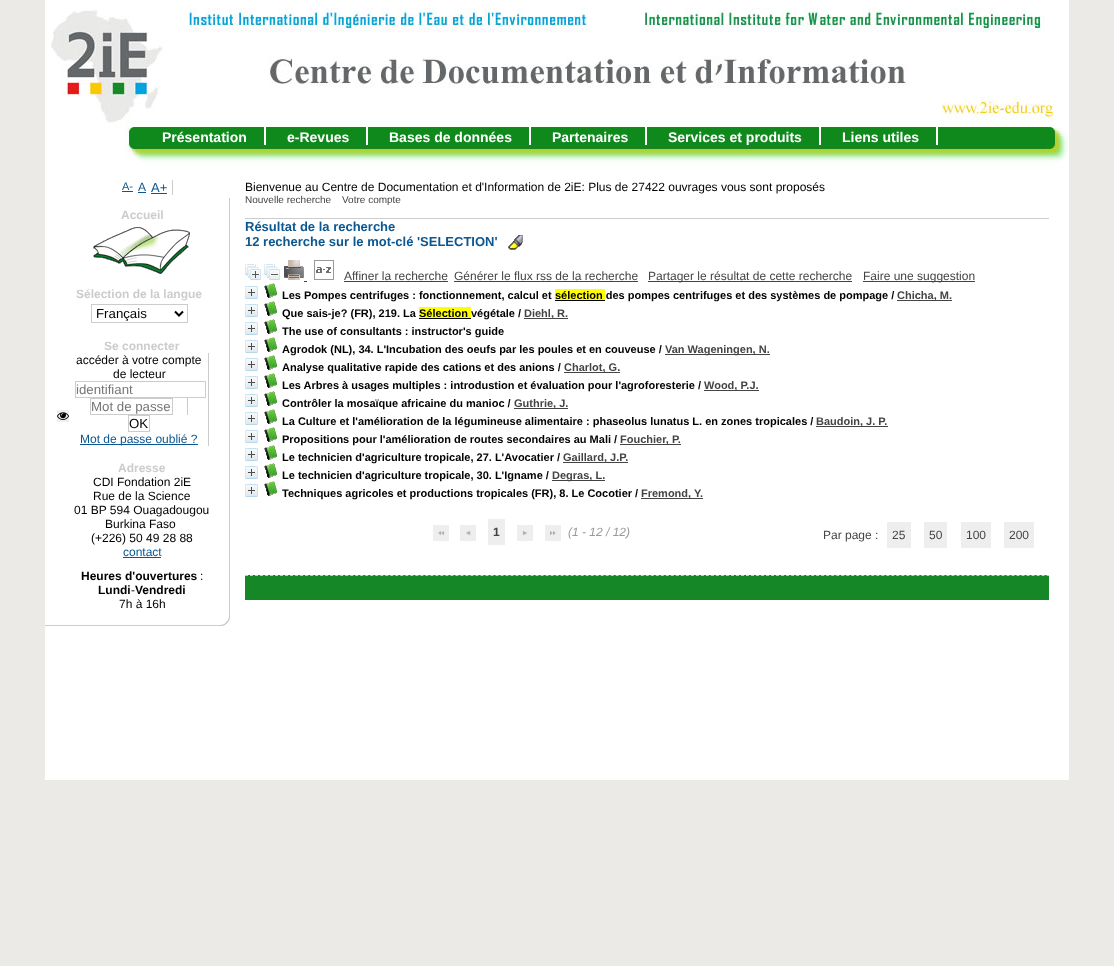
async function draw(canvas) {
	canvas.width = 1114;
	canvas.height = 966;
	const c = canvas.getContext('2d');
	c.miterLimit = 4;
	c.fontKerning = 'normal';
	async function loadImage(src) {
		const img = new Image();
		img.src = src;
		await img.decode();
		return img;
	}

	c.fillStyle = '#ebeae6';
	c.fillRect(0, 0, 1114, 966);
	c.fillStyle = '#fff';
	c.fillRect(45, 0, 1024, 780);
	c.drawImage(await loadImage('img1.png'), 45, 611, 185, 15);
	c.fillStyle = '#ccc';
	c.fillRect(172, 180, 1, 15);
	c.font = '11px Liberation Sans';
	c.fillStyle = '#0b5791';
	c.fillText('A-', 122, 190);
	c.fillRect(122, 191, 11, 1);
	c.font = '12px Liberation Sans';
	c.fillText('A', 138, 191);
	c.fillRect(138, 192, 8, 1);
	c.font = '13px Liberation Sans';
	c.fillText('A+', 151, 192);
	c.fillRect(151, 193, 16, 1);
	c.fillStyle = '#ccc';
	c.fillRect(229, 198, 1, 413);
	c.font = 'bold 12px Liberation Sans';
	c.fillText('Accueil', 121, 219);
	c.drawImage(await loadImage('img2.png'), 93, 227, 97, 47);
	c.fillText('Sélection de la langue', 76, 298);
	c.strokeStyle = '#ccc';
	c.strokeRect(91.5, 304.5, 96, 18);
	c.beginPath();
	c.moveTo(175, 311.5);
	c.lineTo(179, 315.5);
	c.lineTo(183, 311.5);
	c.strokeStyle = '#000';
	c.lineWidth = 2;
	c.stroke();
	c.font = '13.25px Liberation Sans';
	c.fillStyle = '#000';
	c.fillText('Français', 96, 318);
	c.font = 'bold 12px Liberation Sans';
	c.fillStyle = '#ccc';
	c.fillText('Se connecter', 104, 350);
	c.fillRect(208, 353, 1, 93);
	c.font = '12px Liberation Sans';
	c.fillStyle = '#000';
	c.fillText('accéder à votre compte', 76, 364);
	c.fillText('de lecteur', 113, 378);
	c.strokeStyle = '#ccc';
	c.lineWidth = 1;
	c.strokeRect(75.5, 381.5, 130, 16);
	c.font = '13.25px Liberation Sans';
	c.fillStyle = '#757575';
	c.fillText('identifiant', 76, 394);
	c.fillStyle = '#ccc';
	c.fillRect(187, 398, 1, 17);
	c.strokeRect(90.5, 398.5, 82, 16);
	c.fillStyle = '#757575';
	c.fillText('Mot de passe', 91, 411);
	c.fillStyle = '#efefef';
	c.fillRect(57, 410, 12, 12);
	c.drawImage(await loadImage('img3.png'), 57, 412, 12, 8);
	c.strokeRect(128.5, 415.5, 21, 16);
	c.fillStyle = '#000';
	c.fillText('OK', 129, 428);
	c.fillStyle = '#0b5791';
	c.fillRect(80, 444, 118, 1);
	c.font = '12px Liberation Sans';
	c.fillText('Mot de passe oublié ?', 80, 443);
	c.font = 'bold 12px Liberation Sans';
	c.fillStyle = '#ccc';
	c.fillText('Adresse', 118, 472);
	c.font = '12px Liberation Sans';
	c.fillStyle = '#000';
	for (const [text, x, y] of [
		['CDI Fondation 2iE', 93, 486],
		['Rue de la Science', 93, 500],
		['01 BP 594 Ouagadougou', 74, 514],
		['Burkina Faso', 105, 528],
		['(+226) 50 49 28 88', 91, 542],
	]) {
		c.fillText(text, x, y);
	}
	c.fillStyle = '#0b5791';
	c.fillText('contact', 123, 556);
	c.fillRect(123, 557, 38, 1);
	c.font = 'bold 12px Liberation Sans';
	c.fillStyle = '#000';
	c.fillText('Heures d\'ouvertures', 81, 580);
	c.font = '12px Liberation Sans';
	c.fillText(':', 200, 580);
	c.font = 'bold 12px Liberation Sans';
	c.fillText('Lundi', 98, 594);
	c.font = '12px Liberation Sans';
	c.fillText('-', 131, 594);
	c.font = 'bold 12px Liberation Sans';
	c.fillText('Vendredi', 135, 594);
	c.font = '12px Liberation Sans';
	c.fillText('7h à 16h', 119, 608);
	c.drawImage(await loadImage('img4.png'), 51, 8, 1018, 155);
	c.font = 'bold 14px Liberation Sans';
	c.fillStyle = '#fff';
	c.fillText('Présentation', 162, 142);
	c.fillRect(264, 126, 2, 19);
	c.fillText('e-Revues', 287, 142);
	c.fillRect(366, 126, 2, 19);
	c.fillText('Bases de données', 389, 142);
	c.fillRect(529, 126, 2, 19);
	c.fillText('Partenaires', 552, 142);
	c.fillRect(645, 126, 2, 19);
	c.fillText('Services et produits', 668, 142);
	c.fillRect(819, 126, 2, 19);
	c.fillText('Liens utiles', 842, 142);
	c.fillRect(936, 126, 2, 19);
	c.fillStyle = '#ccc';
	c.fillRect(245, 218, 804, 1);
	c.font = '10px Liberation Sans';
	c.fillStyle = '#444';
	c.fillText('Nouvelle recherche', 245, 203);
	c.fillText('Votre compte', 342, 203);
	c.font = 'bold 13px Liberation Sans';
	c.fillStyle = '#0b5791';
	c.fillText('Résultat de la recherche', 245, 231);
	c.fillText('12 recherche sur le mot-clé \'SELECTION\'', 245, 246);
	c.drawImage(await loadImage('img5.png'), 508, 235, 15, 15);
	c.drawImage(await loadImage('img6.png'), 245, 264, 16, 16);
	c.drawImage(await loadImage('img7.png'), 264, 264, 16, 16);
	c.drawImage(await loadImage('img8.png'), 284, 260, 20, 20);
	c.fillStyle = '#444';
	c.fillRect(304, 281, 3, 1);
	c.drawImage(await loadImage('img9.png'), 314, 260, 20, 20);
	c.font = '12px Liberation Sans';
	c.fillText('Affiner la recherche', 344, 280);
	c.fillRect(344, 281, 104, 1);
	c.fillText('Générer le flux rss de la recherche', 454, 280);
	c.fillRect(454, 281, 184, 1);
	c.fillRect(648, 281, 204, 1);
	c.fillText('Partager le résultat de cette recherche', 648, 280);
	c.fillRect(863, 281, 112, 1);
	c.fillText('Faire une suggestion', 863, 280);
	c.drawImage(await loadImage('img10.png'), 245, 286, 13, 13);
	c.drawImage(await loadImage('img11.png'), 264, 283, 13, 15);
	c.font = 'bold 11px Liberation Sans';
	c.fillStyle = '#000';
	c.fillText('Les Pompes centrifuges : fonctionnement, calcul et', 282, 299);
	c.fillStyle = '#ff0';
	c.fillRect(555, 289, 50, 11);
	c.fillStyle = '#000';
	c.fillRect(555, 300, 50, 1);
	c.fillText('sélection des pompes centrifuges et des systèmes de pompage /', 555, 299);
	c.fillStyle = '#444';
	c.fillRect(897, 300, 55, 1);
	c.fillText('Chicha, M.', 897, 299);
	c.drawImage(await loadImage('img10.png'), 245, 304, 13, 13);
	c.drawImage(await loadImage('img11.png'), 264, 301, 13, 15);
	c.fillStyle = '#000';
	c.fillText('Que sais-je? (FR), 219. La', 282, 317);
	c.fillStyle = '#ff0';
	c.fillRect(419, 307, 52, 11);
	c.fillStyle = '#000';
	c.fillRect(419, 318, 52, 1);
	c.fillText('Sélection végétale /', 419, 317);
	c.fillStyle = '#444';
	c.fillRect(524, 318, 44, 1);
	c.fillText('Diehl, R.', 524, 317);
	c.drawImage(await loadImage('img10.png'), 245, 322, 13, 13);
	c.drawImage(await loadImage('img11.png'), 264, 319, 13, 15);
	c.fillStyle = '#000';
	c.fillText('The use of consultants : instructor\'s guide', 282, 335);
	c.drawImage(await loadImage('img10.png'), 245, 340, 13, 13);
	c.drawImage(await loadImage('img11.png'), 264, 337, 13, 15);
	c.fillText('Agrodok (NL), 34. L\'Incubation des oeufs par les poules et en couveuse /', 282, 353);
	c.fillStyle = '#444';
	c.fillRect(665, 354, 105, 1);
	c.fillText('Van Wageningen, N.', 665, 353);
	c.drawImage(await loadImage('img10.png'), 245, 358, 13, 13);
	c.drawImage(await loadImage('img11.png'), 264, 355, 13, 15);
	c.fillStyle = '#000';
	c.fillText('Analyse qualitative rapide des cations et des anions /', 282, 371);
	c.fillStyle = '#444';
	c.fillRect(564, 372, 56, 1);
	c.fillText('Charlot, G.', 564, 371);
	c.drawImage(await loadImage('img10.png'), 245, 376, 13, 13);
	c.drawImage(await loadImage('img11.png'), 264, 373, 13, 15);
	c.fillStyle = '#000';
	c.fillText('Les Arbres à usages multiples : introdustion et évaluation pour l\'agroforesterie /', 282, 389);
	c.fillStyle = '#444';
	c.fillRect(704, 390, 55, 1);
	c.fillText('Wood, P.J.', 704, 389);
	c.drawImage(await loadImage('img10.png'), 245, 394, 13, 13);
	c.drawImage(await loadImage('img11.png'), 264, 391, 13, 15);
	c.fillStyle = '#000';
	c.fillText('Contrôler la mosaïque africaine du manioc /', 282, 407);
	c.fillStyle = '#444';
	c.fillRect(514, 408, 54, 1);
	c.fillText('Guthrie, J.', 514, 407);
	c.drawImage(await loadImage('img10.png'), 245, 412, 13, 13);
	c.drawImage(await loadImage('img11.png'), 264, 409, 13, 15);
	c.fillStyle = '#000';
	c.fillText('La Culture et l\'amélioration de la légumineuse alimentaire : phaseolus lunatus L. en zones tropicales /', 282, 425);
	c.fillStyle = '#444';
	c.fillRect(816, 426, 72, 1);
	c.fillText('Baudoin, J. P.', 816, 425);
	c.drawImage(await loadImage('img10.png'), 245, 430, 13, 13);
	c.drawImage(await loadImage('img11.png'), 264, 427, 13, 15);
	c.fillStyle = '#000';
	c.fillText('Propositions pour l\'amélioration de routes secondaires au Mali /', 282, 443);
	c.fillStyle = '#444';
	c.fillRect(620, 444, 61, 1);
	c.fillText('Fouchier, P.', 620, 443);
	c.drawImage(await loadImage('img10.png'), 245, 448, 13, 13);
	c.drawImage(await loadImage('img11.png'), 264, 445, 13, 15);
	c.fillStyle = '#000';
	c.fillText('Le technicien d\'agriculture tropicale, 27. L\'Avocatier /', 282, 461);
	c.fillStyle = '#444';
	c.fillRect(563, 462, 65, 1);
	c.fillText('Gaillard, J.P.', 563, 461);
	c.drawImage(await loadImage('img10.png'), 245, 466, 13, 13);
	c.drawImage(await loadImage('img11.png'), 264, 463, 13, 15);
	c.fillStyle = '#000';
	c.fillText('Le technicien d\'agriculture tropicale, 30. L\'Igname /', 282, 479);
	c.fillStyle = '#444';
	c.fillRect(552, 480, 53, 1);
	c.fillText('Degras, L.', 552, 479);
	c.drawImage(await loadImage('img10.png'), 245, 484, 13, 13);
	c.drawImage(await loadImage('img11.png'), 264, 481, 13, 15);
	c.fillStyle = '#000';
	c.fillText('Techniques agricoles et productions tropicales (FR), 8. Le Cocotier /', 282, 497);
	c.fillStyle = '#444';
	c.fillRect(641, 498, 62, 1);
	c.fillText('Fremond, Y.', 641, 497);
	c.fillStyle = '#eee';
	c.fillRect(433, 525, 16, 16);
	c.drawImage(await loadImage('img12.png'), 438, 531, 6, 5);
	c.fillRect(460, 525, 16, 16);
	c.drawImage(await loadImage('img13.png'), 466, 531, 5, 5);
	c.fillRect(488, 519, 17, 26);
	c.font = 'bold 12px Liberation Sans';
	c.fillStyle = '#444';
	c.fillText('1', 493, 536);
	c.fillStyle = '#eee';
	c.fillRect(517, 525, 16, 16);
	c.drawImage(await loadImage('img14.png'), 522, 531, 5, 5);
	c.fillRect(545, 525, 16, 16);
	c.drawImage(await loadImage('img15.png'), 550, 531, 6, 5);
	c.font = 'italic 12px Liberation Sans';
	c.fillStyle = '#999';
	c.fillText('(1 - 12 / 12)', 568, 536);
	c.font = '12px Liberation Sans';
	c.fillStyle = '#444';
	c.fillText('Par page :', 823, 539);
	c.fillStyle = '#eee';
	c.fillRect(887, 522, 24, 26);
	c.fillStyle = '#444';
	c.fillText('25', 892, 539);
	c.fillStyle = '#eee';
	c.fillRect(924, 522, 23, 26);
	c.fillStyle = '#444';
	c.fillText('50', 929, 539);
	c.fillStyle = '#eee';
	c.fillRect(961, 522, 30, 26);
	c.fillStyle = '#444';
	c.fillText('100', 966, 539);
	c.fillStyle = '#eee';
	c.fillRect(1004, 522, 30, 26);
	c.fillStyle = '#444';
	c.fillText('200', 1009, 539);
	c.fillStyle = '#000';
	c.fillText('Bienvenue au Centre de Documentation et d\'Information de 2iE: Plus de 27422 ouvrages vous sont proposés', 245, 191);
	c.fillStyle = '#158727';
	c.fillRect(245, 575, 804, 25);
	c.beginPath();
	c.moveTo(245, 575.5);
	c.lineTo(1049, 575.5);
	c.setLineDash([3, 2.01]);
	c.stroke();
}

draw(document.querySelector('canvas'));
